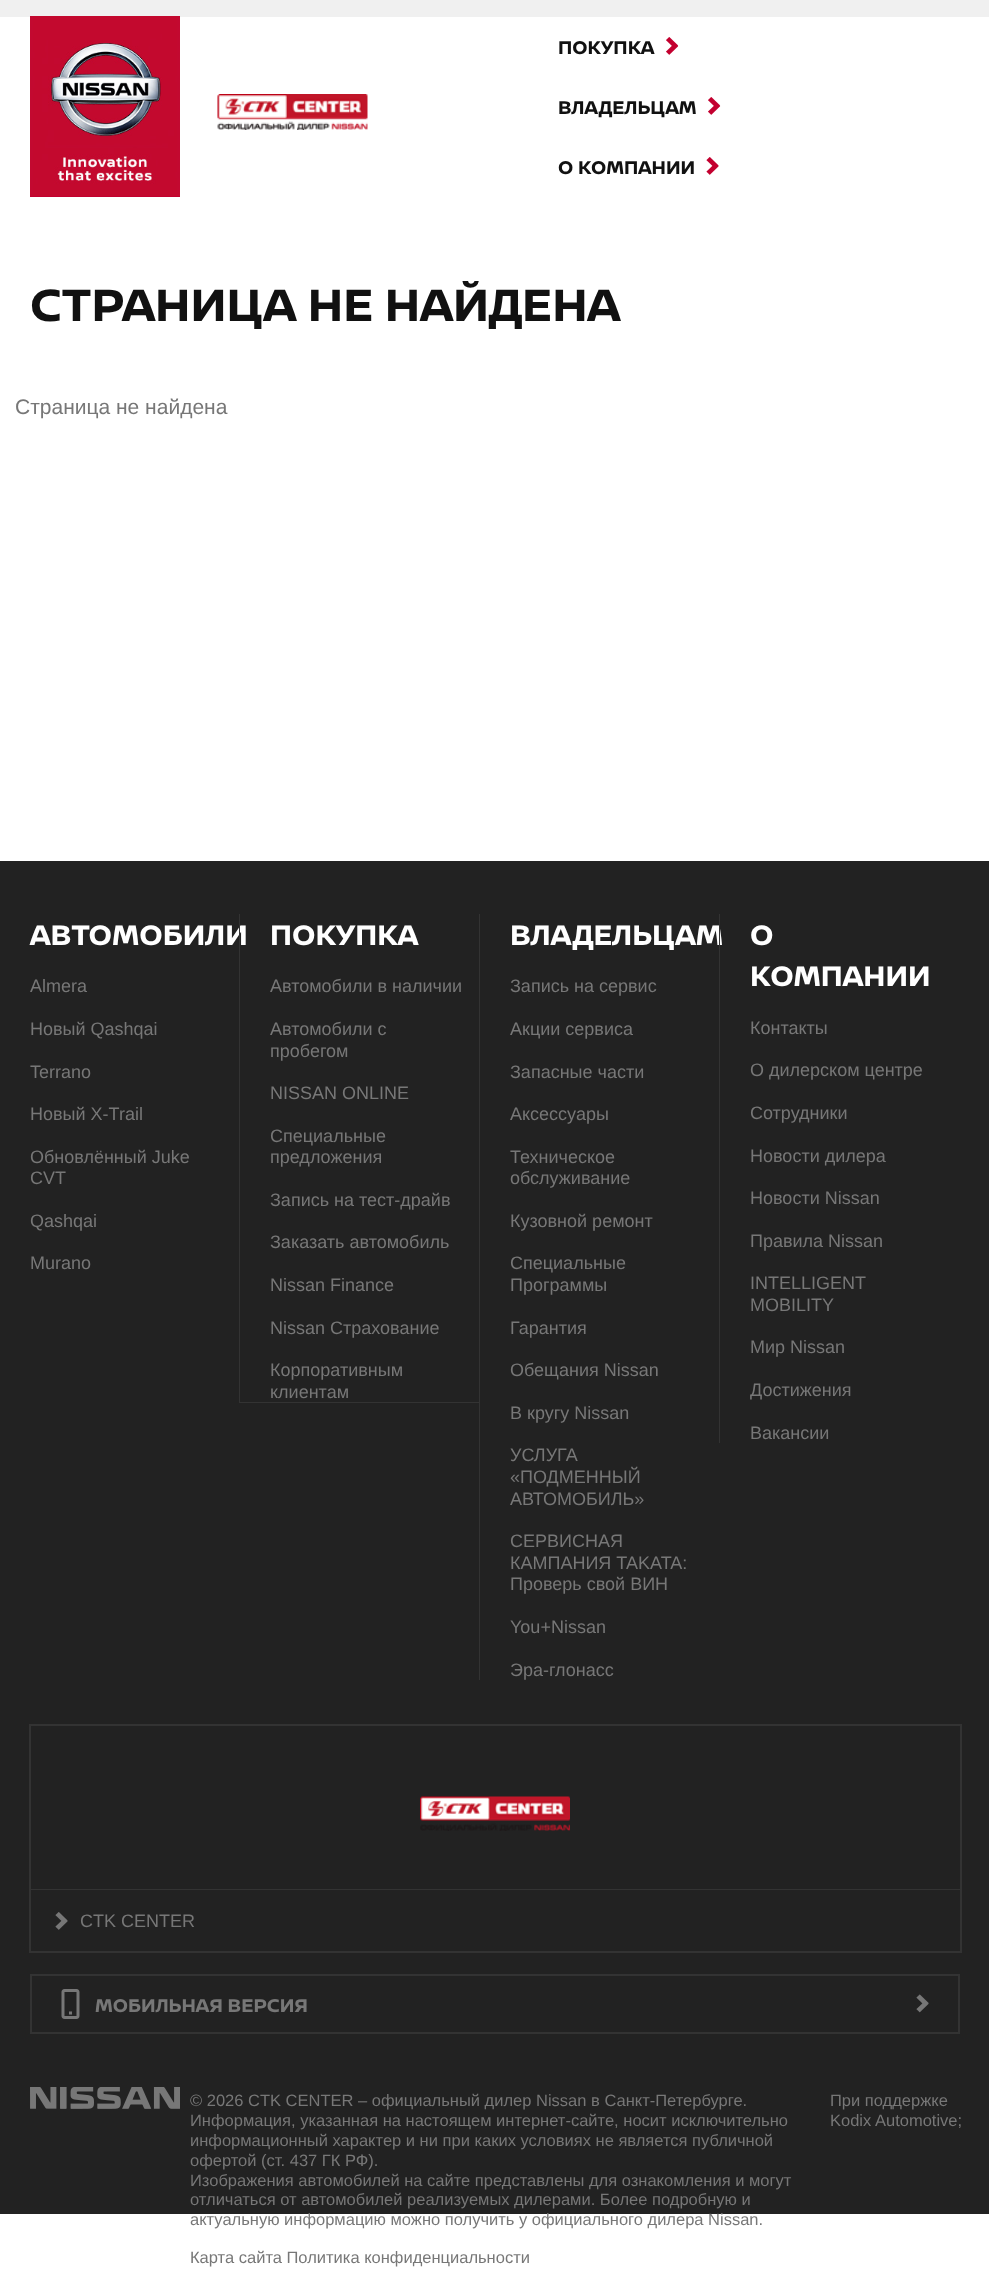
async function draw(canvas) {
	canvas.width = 989;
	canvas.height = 2285;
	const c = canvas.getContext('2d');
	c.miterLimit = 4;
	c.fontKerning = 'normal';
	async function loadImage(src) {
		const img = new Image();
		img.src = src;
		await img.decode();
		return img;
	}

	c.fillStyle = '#fff';
	c.fillRect(0, 0, 989, 2285);
	for (const [x, y, w, h, color] of [
		[0, 861, 989, 1353, '#222'],
		[0, 0, 989, 17, '#f0f0f0'],
		[30, 196, 150, 1, '#c3002f'],
	]) {
		c.fillStyle = color;
		c.fillRect(x, y, w, h);
	}
	c.drawImage(await loadImage('img1.png'), 30, 16, 150, 180);
	c.drawImage(await loadImage('img2.png'), 217, 94, 151, 36);
	c.font = 'bold 19.5px "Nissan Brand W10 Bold"';
	c.fillStyle = '#111';
	c.fillText('ПОКУПКА', 558, 54);
	c.drawImage(await loadImage('img3.png'), 666, 37, 13, 18);
	c.fillText('ВЛАДЕЛЬЦАМ', 558, 114);
	c.drawImage(await loadImage('img3.png'), 708, 97, 13, 18);
	c.fillText('О КОМПАНИИ', 558, 174);
	c.drawImage(await loadImage('img4.png'), 706, 157, 13, 18);
	c.font = 'bold 48px "Nissan Brand W10 Bold"';
	c.fillText('СТРАНИЦА НЕ НАЙДЕНА', 30, 321);
	c.font = '21px Liberation Sans';
	c.fillStyle = '#777';
	c.fillText('Страница не найдена', 15, 414);
	c.font = 'bold 30px "Nissan Brand W10 Bold"';
	c.fillStyle = '#fff';
	c.fillText('АВТОМОБИЛИ', 30, 945);
	c.font = '18px Liberation Sans';
	c.fillStyle = '#777';
	for (const [text, x, y] of [
		['Almera', 30, 992],
		['Новый Qashqai', 30, 1035],
		['Terrano', 30, 1078],
		['Новый X-Trail', 30, 1120],
		['Обновлённый Juke', 30, 1163],
		['CVT', 30, 1184],
		['Qashqai', 30, 1227],
		['Murano', 30, 1269],
	]) {
		c.fillText(text, x, y);
	}
	c.fillStyle = '#333';
	c.beginPath();
	c.moveTo(239, 914);
	c.lineTo(239, 1403);
	c.lineTo(479, 1403);
	c.lineTo(479, 1402);
	c.lineTo(240, 1402);
	c.lineTo(240, 914);
	c.closePath();
	c.fill();
	c.font = 'bold 30px "Nissan Brand W10 Bold"';
	c.fillStyle = '#fff';
	c.fillText('ПОКУПКА', 270, 945);
	c.font = '18px Liberation Sans';
	c.fillStyle = '#777';
	for (const [text, x, y] of [
		['Автомобили в наличии', 270, 992],
		['Автомобили с', 270, 1035],
		['пробегом', 270, 1057],
		['NISSAN ONLINE', 270, 1099],
		['Специальные', 270, 1142],
		['предложения', 270, 1163],
		['Запись на тест-драйв', 270, 1206],
		['Заказать автомобиль', 270, 1248],
		['Nissan Finance', 270, 1291],
		['Nissan Страхование', 270, 1334],
		['Корпоративным', 270, 1376],
		['клиентам', 270, 1398],
	]) {
		c.fillText(text, x, y);
	}
	c.fillStyle = '#333';
	c.fillRect(479, 914, 1, 766);
	c.font = 'bold 30px "Nissan Brand W10 Bold"';
	c.fillStyle = '#fff';
	c.fillText('ВЛАДЕЛЬЦАМ', 510, 945);
	c.font = '18px Liberation Sans';
	c.fillStyle = '#777';
	for (const [text, x, y] of [
		['Запись на сервис', 510, 992],
		['Акции сервиса', 510, 1035],
		['Запасные части', 510, 1078],
		['Аксессуары', 510, 1120],
		['Техническое', 510, 1163],
		['обслуживание', 510, 1184],
		['Кузовной ремонт', 510, 1227],
		['Специальные', 510, 1269],
		['Программы', 510, 1291],
		['Гарантия', 510, 1334],
		['Обещания Nissan', 510, 1376],
		['В кругу Nissan', 510, 1419],
		['УСЛУГА', 510, 1461],
		['«ПОДМЕННЫЙ', 510, 1483],
		['АВТОМОБИЛЬ»', 510, 1505],
		['СЕРВИСНАЯ', 510, 1547],
		['КАМПАНИЯ TAKATA:', 510, 1569],
		['Проверь свой ВИН', 510, 1590],
		['You+Nissan', 510, 1633],
		['Эра-глонасс', 510, 1676],
	]) {
		c.fillText(text, x, y);
	}
	c.fillStyle = '#333';
	c.fillRect(719, 914, 1, 529);
	c.font = 'bold 30px "Nissan Brand W10 Bold"';
	c.fillStyle = '#fff';
	c.fillText('О', 750, 945);
	c.fillText('КОМПАНИИ', 750, 986);
	c.font = '18px Liberation Sans';
	c.fillStyle = '#777';
	for (const [text, x, y] of [
		['Контакты', 750, 1034],
		['О дилерском центре', 750, 1076],
		['Сотрудники', 750, 1119],
		['Новости дилера', 750, 1162],
		['Новости Nissan', 750, 1204],
		['Правила Nissan', 750, 1247],
		['INTELLIGENT', 750, 1289],
		['MOBILITY', 750, 1311],
		['Мир Nissan', 750, 1353],
		['Достижения', 750, 1396],
		['Вакансии', 750, 1439],
	]) {
		c.fillText(text, x, y);
	}
	c.strokeStyle = '#333';
	c.lineWidth = 2;
	c.strokeRect(30, 1725, 931, 227);
	c.drawImage(await loadImage('img5.png'), 420, 1796, 150, 35);
	c.fillStyle = '#333';
	c.fillRect(30, 1889, 930, 1);
	c.drawImage(await loadImage('img6.png'), 55, 1912, 13, 18);
	c.fillStyle = '#777';
	c.fillText('CTK CENTER', 80, 1927);
	c.strokeRect(31, 1975, 928, 58);
	c.drawImage(await loadImage('img7.png'), 61, 1989, 19, 30);
	c.font = 'bold 19.5px "Nissan Brand W10 Bold"';
	c.fillText('МОБИЛЬНАЯ ВЕРСИЯ', 95, 2012);
	c.drawImage(await loadImage('img8.png'), 916, 1994, 13, 19);
	c.drawImage(await loadImage('img9.png'), 30, 2087, 150, 22);
	c.font = '16.5px Liberation Sans';
	for (const [text, x, y] of [
		['© 2026 CTK CENTER – официальный дилер Nissan в Санкт-Петербурге.', 190, 2106],
		['Информация, указанная на настоящем интернет-сайте, носит исключительно', 190, 2126],
		['информационный характер и ни при каких условиях не является публичной', 190, 2146],
		['офертой (ст. 437 ГК РФ).', 190, 2166],
		['Изображения автомобилей на сайте представлены для ознакомления и могут', 190, 2186],
		['отличаться от автомобилей реализуемых дилерами. Более подробную и', 190, 2205],
		['актуальную информацию можно получить у официального дилера Nissan.', 190, 2225],
		['При поддержке', 830, 2106],
		['Kodix Automotive;', 830, 2126],
		['Карта сайта Политика конфиденциальности', 190, 2263],
	]) {
		c.fillText(text, x, y);
	}
}

draw(document.querySelector('canvas'));
